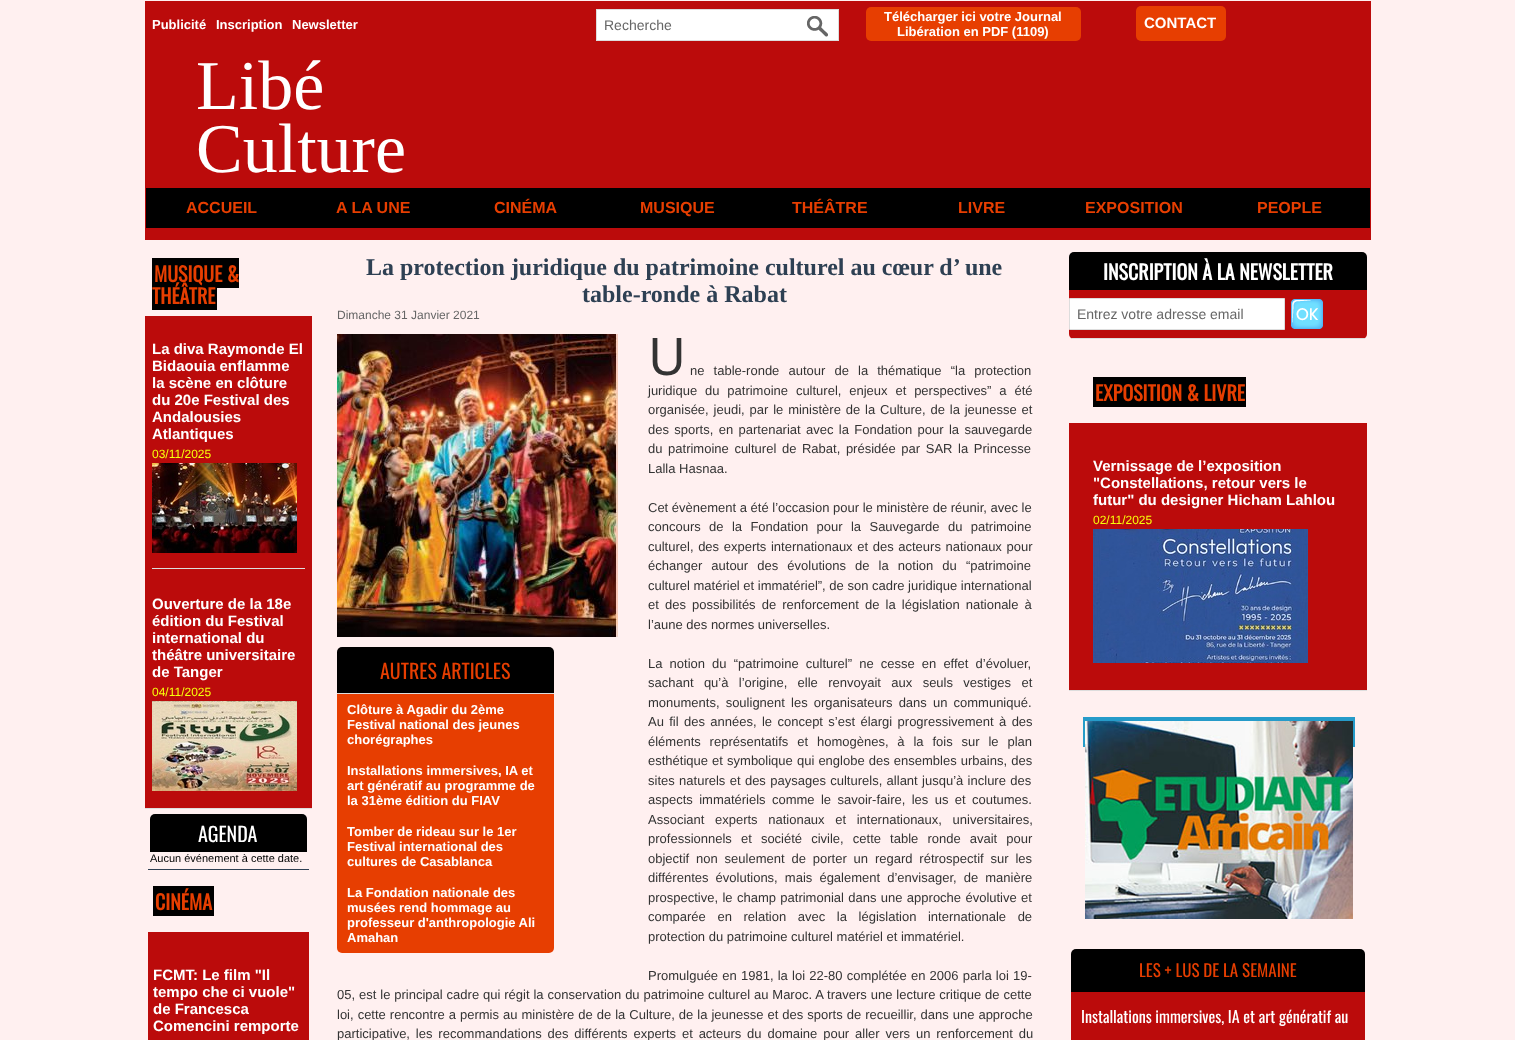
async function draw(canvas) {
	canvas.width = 1515;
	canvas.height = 1040;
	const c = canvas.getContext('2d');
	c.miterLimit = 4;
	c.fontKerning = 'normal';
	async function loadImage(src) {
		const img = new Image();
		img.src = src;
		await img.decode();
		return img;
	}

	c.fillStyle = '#fff0f0';
	c.fillRect(0, 0, 1515, 1040);
	c.fillStyle = '#bb0b0b';
	c.fillRect(145, 1, 1226, 239);
	c.font = 'bold 13px Liberation Sans';
	c.fillStyle = '#fff';
	for (const [text, x, y] of [
		['Publicité', 152, 29],
		['Inscription', 216, 29],
		['Newsletter', 292, 29],
	]) {
		c.fillText(text, x, y);
	}
	c.fillRect(597, 10, 241, 30);
	c.drawImage(await loadImage('img1.png'), 807, 16, 21, 21);
	c.strokeStyle = '#ddd';
	c.strokeRect(596.5, 9.5, 242, 31);
	c.font = '14px Liberation Sans';
	c.fillStyle = '#666';
	c.fillText('Recherche', 604, 30);
	c.fillStyle = '#e73e01';
	c.beginPath();
	c.roundRect(866, 7, 215, 34, 5);
	c.fill();
	c.font = 'bold 13px Liberation Sans';
	c.fillStyle = '#fff';
	c.fillText('Télécharger ici votre Journal', 884, 21);
	c.fillText('Libération en PDF (1109)', 897, 36);
	c.fillStyle = '#e73e01';
	c.beginPath();
	c.roundRect(1136, 6, 90, 35, 5);
	c.fill();
	c.font = 'bold 15px Liberation Sans';
	c.fillStyle = '#fff';
	c.fillText('CONTACT', 1144, 28);
	c.font = '70px Liberation Serif';
	c.fillText('Libé', 196, 109);
	c.fillText('Culture', 196, 172);
	c.fillStyle = '#000';
	c.fillRect(146, 188, 1224, 40);
	c.font = 'bold 16px Liberation Sans';
	c.fillStyle = '#e73e01';
	for (const [text, x, y] of [
		['ACCUEIL', 186, 213],
		['A LA UNE', 336, 213],
		['CINÉMA', 494, 213],
		['MUSIQUE', 640, 213],
		['THÉÂTRE', 792, 213],
		['LIVRE', 958, 213],
		['EXPOSITION', 1085, 213],
		['PEOPLE', 1257, 213],
	]) {
		c.fillText(text, x, y);
	}
	c.fillStyle = '#000';
	c.fillRect(152, 258, 87, 30);
	c.font = 'bold 20px Oswald';
	c.fillStyle = '#e73e01';
	c.fillText('MUSIQUE &', 154, 282);
	c.fillStyle = '#000';
	c.fillRect(152, 288, 65, 22);
	c.fillStyle = '#e73e01';
	c.fillText('THÉÂTRE', 152, 304);
	for (const [x, y, w, h, color] of [
		[145, 316, 167, 492, '#bb0b0b'],
		[145, 808, 167, 1, '#ddd'],
		[152, 568, 153, 1, '#ddd'],
	]) {
		c.fillStyle = color;
		c.fillRect(x, y, w, h);
	}
	c.font = 'bold 15px Liberation Sans';
	c.fillStyle = '#fff';
	for (const [text, x, y] of [
		['La diva Raymonde El', 152, 354],
		['Bidaouia enflamme', 152, 371],
		['la scène en clôture', 152, 388],
		['du 20e Festival des', 152, 405],
		['Andalousies', 152, 422],
		['Atlantiques', 152, 439],
	]) {
		c.fillText(text, x, y);
	}
	c.font = '12px Liberation Sans';
	c.fillStyle = '#f7ff0a';
	c.fillText('03/11/2025', 152, 458);
	c.drawImage(await loadImage('img2.png'), 152, 463, 145, 90);
	c.font = 'bold 15px Liberation Sans';
	c.fillStyle = '#fff';
	for (const [text, x, y] of [
		['Ouverture de la 18e', 152, 609],
		['édition du Festival', 152, 626],
		['international du', 152, 643],
		['théâtre universitaire', 152, 660],
		['de Tanger', 152, 677],
	]) {
		c.fillText(text, x, y);
	}
	c.font = '12px Liberation Sans';
	c.fillStyle = '#f7ff0a';
	c.fillText('04/11/2025', 152, 696);
	c.drawImage(await loadImage('img3.png'), 152, 701, 145, 90);
	c.fillStyle = '#000';
	c.beginPath();
	c.roundRect(150, 814, 157, 38, [5, 5, 0, 0]);
	c.fill();
	c.font = '20px Oswald';
	c.fillStyle = '#fff';
	c.fillText('AGENDA', 198, 842);
	c.font = '11px Liberation Sans';
	c.fillStyle = '#000';
	c.fillText('Aucun événement à cette date.', 150, 862);
	c.fillStyle = '#2e4053';
	c.fillRect(148, 869, 161, 1);
	c.fillStyle = '#000';
	c.fillRect(153, 886, 61, 30);
	c.font = 'bold 20px Oswald';
	c.fillStyle = '#e73e01';
	c.fillText('CINÉMA', 155, 910);
	c.fillStyle = '#bb0b0b';
	c.fillRect(148, 932, 161, 108);
	c.font = 'bold 15px Liberation Sans';
	c.fillStyle = '#fff';
	for (const [text, x, y] of [
		['FCMT: Le film "Il', 153, 980],
		['tempo che ci vuole"', 153, 997],
		['de Francesca', 153, 1014],
		['Comencini remporte', 153, 1031],
	]) {
		c.fillText(text, x, y);
	}
	c.font = 'bold 24px Liberation Serif';
	c.fillStyle = '#2e4053';
	c.fillText('La protection juridique du patrimoine culturel au cœur d’ une', 366, 275);
	c.fillText('table-ronde à Rabat', 582, 302);
	c.font = '12px Liberation Sans';
	c.fillStyle = '#666';
	c.fillText('Dimanche 31 Janvier 2021', 337, 319);
	c.font = '52px Noto Sans';
	c.fillStyle = '#333';
	c.fillText('U', 648, 375);
	c.wordSpacing = '5.5px';
	c.font = '13px Liberation Sans';
	c.fillText('ne table-ronde autour de la thématique “la protection', 690, 375);
	c.wordSpacing = '4.25px';
	c.fillText('juridique du patrimoine culturel, enjeux et perspectives” a été', 648, 395);
	c.wordSpacing = '1.25px';
	c.fillText('organisée, jeudi, par le ministère de la Culture, de la jeunesse et', 648, 414);
	c.wordSpacing = '1.75px';
	c.fillText('des sports, en partenariat avec la Fondation pour la sauvegarde', 648, 434);
	c.wordSpacing = '2px';
	c.fillText('du patrimoine culturel de Rabat, présidée par SAR la Princesse', 648, 453);
	c.wordSpacing = '0px';
	c.fillText('Lalla Hasnaa.', 648, 473);
	c.fillText('Cet évènement a été l’occasion pour le ministère de réunir, avec le', 648, 512);
	c.wordSpacing = '4.75px';
	c.fillText('concours de la Fondation pour la Sauvegarde du patrimoine', 648, 531);
	c.wordSpacing = '1px';
	c.fillText('culturel, des experts internationaux et des acteurs nationaux pour', 648, 551);
	c.wordSpacing = '5.5px';
	c.fillText('échanger autour des évolutions de la notion du “patrimoine', 648, 570);
	c.wordSpacing = '0px';
	c.fillText('culturel matériel et immatériel”, de son cadre juridique international', 648, 590);
	c.wordSpacing = '2.5px';
	c.fillText('et des possibilités de renforcement de la législation nationale à', 648, 609);
	c.wordSpacing = '0px';
	c.fillText('l’aune des normes universelles.', 648, 629);
	c.wordSpacing = '3.5px';
	c.fillText('La notion du “patrimoine culturel” ne cesse en effet d’évoluer,', 648, 668);
	c.wordSpacing = '6.75px';
	c.fillText('sachant qu’à l’origine, elle renvoyait aux seuls vestiges et', 648, 687);
	c.wordSpacing = '2.5px';
	c.fillText('monuments, soulignent les organisateurs dans un communiqué.', 648, 707);
	c.wordSpacing = '1.75px';
	c.fillText('Au fil des années, le concept s’est élargi progressivement à des', 648, 726);
	c.wordSpacing = '5.25px';
	c.fillText('éléments représentatifs et homogènes, à la fois sur le plan', 648, 746);
	c.wordSpacing = '0.5px';
	c.fillText('esthétique et symbolique qui englobe des ensembles urbains, des', 648, 765);
	c.wordSpacing = '0.75px';
	c.fillText('sites naturels et des paysages culturels, allant jusqu’à inclure des', 648, 785);
	c.wordSpacing = '2.75px';
	c.fillText('aspects immatériels comme le savoir-faire, les us et coutumes.', 648, 804);
	c.wordSpacing = '7px';
	c.fillText('Associant experts nationaux et internationaux, universitaires,', 648, 824);
	c.wordSpacing = '5.5px';
	c.fillText('professionnels et société civile, cette table ronde avait pour', 648, 843);
	c.wordSpacing = '3.25px';
	c.fillText('objectif non seulement de porter un regard rétrospectif sur les', 648, 863);
	c.wordSpacing = '3.5px';
	c.fillText('différentes évolutions, mais également d’envisager, de manière', 648, 882);
	c.wordSpacing = '0.75px';
	c.fillText('prospective, le champ patrimonial dans une approche évolutive et', 648, 902);
	c.wordSpacing = '8px';
	c.fillText('comparée en relation avec la législation internationale de', 648, 921);
	c.wordSpacing = '0px';
	c.fillText('protection du patrimoine culturel matériel et immatériel.', 648, 941);
	c.wordSpacing = '0.6px';
	c.fillText('Promulguée en 1981, la loi 22-80 complétée en 2006 parla loi 19-', 648, 980);
	c.wordSpacing = '0.3px';
	c.fillText('05, est le principal cadre qui régit la conservation du patrimoine culturel au Maroc. A travers une lecture critique de cette', 337, 999);
	c.wordSpacing = '0.4px';
	c.fillText('loi, cette rencontre a permis au ministère de de la Culture, de la jeunesse et des sports de recueillir, dans une approche', 337, 1019);
	c.wordSpacing = '2.25px';
	c.fillText('participative, les recommandations des différents experts et acteurs du domaine pour aller vers un renforcement du', 337, 1038);
	c.drawImage(await loadImage('img4.png'), 337, 334, 281, 303);
	c.fillStyle = '#000';
	c.beginPath();
	c.roundRect(337, 647, 217, 47, [5, 5, 0, 0]);
	c.fill();
	c.fillStyle = '#ddd';
	c.fillRect(337, 693, 217, 1);
	c.wordSpacing = '0px';
	c.font = '20px Oswald';
	c.fillStyle = '#e73e01';
	c.fillText('AUTRES ARTICLES', 380, 679);
	c.fillRect(337, 694, 217, 183);
	c.font = 'bold 13px Liberation Sans';
	c.fillStyle = '#fff';
	for (const [text, x, y] of [
		['Clôture à Agadir du 2ème', 347, 714],
		['Festival national des jeunes', 347, 729],
		['chorégraphes', 347, 744],
		['Installations immersives, IA et', 347, 775],
		['art génératif au programme de', 347, 790],
		['la 31ème édition du FIAV', 347, 805],
		['Tomber de rideau sur le 1er', 347, 836],
		['Festival international des', 347, 851],
		['cultures de Casablanca', 347, 866],
	]) {
		c.fillText(text, x, y);
	}
	c.fillStyle = '#e73e01';
	c.beginPath();
	c.roundRect(337, 877, 217, 76, [0, 0, 5, 5]);
	c.fill();
	c.fillStyle = '#fff';
	for (const [text, x, y] of [
		['La Fondation nationale des', 347, 897],
		['musées rend hommage au', 347, 912],
		['professeur d\'anthropologie Ali', 347, 927],
		['Amahan', 347, 942],
	]) {
		c.fillText(text, x, y);
	}
	c.fillStyle = '#000';
	c.beginPath();
	c.roundRect(1069, 252, 298, 38, [5, 5, 0, 0]);
	c.fill();
	c.font = 'bold 20px Oswald';
	c.fillStyle = '#fff';
	c.fillText('INSCRIPTION À LA NEWSLETTER', 1103, 280);
	c.fillStyle = '#bb0b0b';
	c.beginPath();
	c.roundRect(1069, 290, 298, 49, [0, 0, 5, 5]);
	c.fill();
	c.fillStyle = '#ddd';
	c.fillRect(1072, 338, 293, 1);
	c.fillStyle = '#fff';
	c.beginPath();
	c.rect(1069.5, 298.5, 215, 31);
	c.fill();
	c.stroke();
	c.font = '14px Liberation Sans';
	c.fillStyle = '#666';
	c.fillText('Entrez votre adresse email', 1077, 319);
	c.drawImage(await loadImage('img5.png'), 1291, 299, 32, 30);
	c.fillStyle = '#000';
	c.fillRect(1093, 377, 153, 30);
	c.font = 'bold 20px Oswald';
	c.fillStyle = '#e73e01';
	c.fillText('EXPOSITION & LIVRE', 1095, 401);
	c.fillStyle = '#bb0b0b';
	c.fillRect(1069, 423, 298, 267);
	c.fillStyle = '#ddd';
	c.fillRect(1069, 690, 298, 1);
	c.font = 'bold 15px Liberation Sans';
	c.fillStyle = '#fff';
	for (const [text, x, y] of [
		['Vernissage de l’exposition', 1093, 471],
		['"Constellations, retour vers le', 1093, 488],
		['futur" du designer Hicham Lahlou', 1093, 505],
	]) {
		c.fillText(text, x, y);
	}
	c.font = '12px Liberation Sans';
	c.fillStyle = '#f7ff0a';
	c.fillText('02/11/2025', 1093, 524);
	c.drawImage(await loadImage('img6.png'), 1093, 529, 215, 134);
	c.fillStyle = '#269bc9';
	c.fillRect(1083, 717, 272, 30);
	c.drawImage(await loadImage('img7.png'), 1085, 721, 268, 198);
	c.fillStyle = '#000';
	c.beginPath();
	c.roundRect(1071, 949, 294, 43, [5, 5, 0, 0]);
	c.fill();
	c.font = '17px Oswald';
	c.fillStyle = '#e73e01';
	c.fillText('LES + LUS DE LA SEMAINE', 1139, 977);
	c.fillStyle = '#bb0b0b';
	c.fillRect(1071, 992, 294, 48);
	c.font = '16px Oswald';
	c.fillStyle = '#fff';
	c.fillText('Installations immersives, IA et art génératif au', 1081, 1023);
}

draw(document.querySelector('canvas'));
